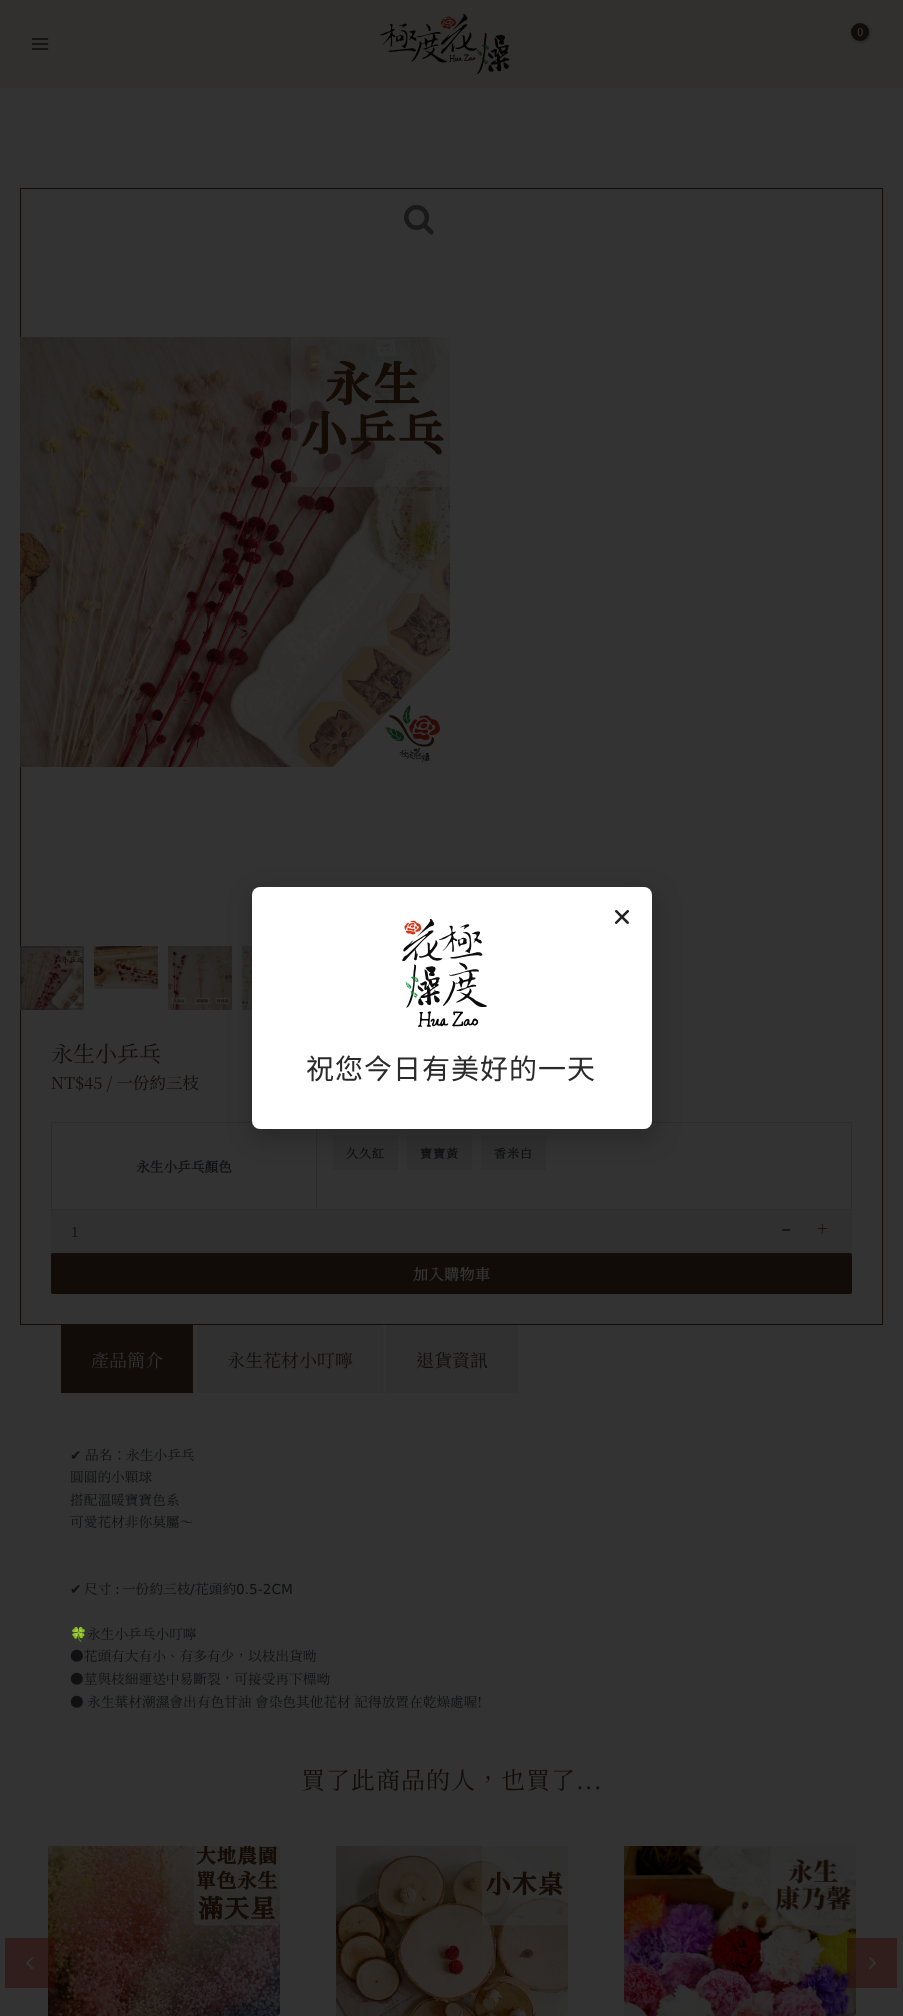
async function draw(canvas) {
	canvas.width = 903;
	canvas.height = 2016;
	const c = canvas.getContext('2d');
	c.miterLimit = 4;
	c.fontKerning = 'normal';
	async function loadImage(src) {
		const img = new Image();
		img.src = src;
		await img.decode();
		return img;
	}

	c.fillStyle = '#333';
	c.fillRect(0, 0, 903, 2016);
	c.fillStyle = '#31302f';
	c.fillRect(0, 0, 903, 88);
	c.drawImage(await loadImage('img1.png'), 380, 14, 130, 60);
	c.fillStyle = '#0000004d';
	c.filter = 'blur(1.5px)';
	c.beginPath();
	c.roundRect(852, 24, 18, 18, 9);
	c.fill();
	c.filter = 'none';
	c.fillStyle = '#120c09';
	c.beginPath();
	c.arc(860, 32, 9, 0, 2 * Math.PI);
	c.fill();
	c.font = 'bold 11px Noto Serif TC';
	c.fillStyle = '#333';
	c.fillText('0', 857, 36);
	c.drawImage(await loadImage('img2.png'), 31, 38, 18, 12);
	c.strokeStyle = '#120c09';
	c.strokeRect(20.5, 188.5, 862, 1136);
	c.drawImage(await loadImage('img3.png'), 404, 204, 30, 31);
	c.drawImage(await loadImage('img4.png'), 20, 337, 430, 430);
	c.drawImage(await loadImage('img5.png'), 20, 946, 64, 64);
	c.strokeStyle = '#19191966';
	c.lineWidth = 2;
	c.strokeRect(21, 947, 62, 62);
	c.drawImage(await loadImage('img6.png'), 94, 946, 64, 43);
	c.drawImage(await loadImage('img7.png'), 168, 946, 64, 64);
	c.drawImage(await loadImage('img8.png'), 242, 946, 10, 64);
	c.font = '200 22px Noto Serif TC';
	c.fillStyle = '#120c09';
	c.fillText('永生小乒乓', 51, 1062);
	c.font = '200 16.5px Noto Serif TC';
	c.fillText('NT$45 / 一份約三枝', 51, 1089);
	for (const [x, y, w, h, color] of [
		[51, 1122, 801, 1, '#2c2c2c'],
		[51, 1122, 1, 88, '#2c2c2c'],
		[851, 1123, 1, 87, '#2c2c2c'],
		[317, 1209, 535, 1, '#2c2c2c'],
	]) {
		c.fillStyle = color;
		c.fillRect(x, y, w, h);
	}
	c.fillStyle = '#303030';
	c.beginPath();
	c.roundRect(333, 1135, 65, 35, 2);
	c.fill();
	c.letterSpacing = '1px';
	c.font = 'bold 12px Noto Serif TC';
	c.fillStyle = '#0f1012';
	c.fillText('久久紅', 346, 1158);
	c.fillStyle = '#303030';
	c.beginPath();
	c.roundRect(407, 1135, 65, 35, 2);
	c.fill();
	c.fillStyle = '#0f1012';
	c.fillText('寶寶黃', 420, 1158);
	c.fillStyle = '#303030';
	c.beginPath();
	c.roundRect(481, 1135, 65, 35, 2);
	c.fill();
	c.fillStyle = '#0f1012';
	c.fillText('香米白', 494, 1158);
	c.fillStyle = '#2c2c2c';
	c.fillRect(316, 1123, 1, 87);
	c.fillRect(52, 1209, 265, 1);
	c.letterSpacing = '0px';
	c.font = 'bold 13.7px Noto Serif TC';
	c.fillStyle = '#0f1012';
	c.fillText('永生小乒乓顏色', 136, 1172);
	c.fillStyle = '#303030';
	c.beginPath();
	c.roundRect(51, 1210, 801, 43, 2);
	c.fill();
	c.font = '200 13.7px Noto Serif TC';
	c.fillStyle = '#120c09';
	c.fillText('1', 71, 1237);
	c.font = '200 30px Noto Serif TC';
	c.fillText('-', 781, 1238);
	c.font = '200 18px Noto Serif TC';
	c.fillText('+', 817, 1235);
	c.beginPath();
	c.roundRect(51, 1253, 801, 41, 2);
	c.fill();
	c.letterSpacing = '0.5px';
	c.font = 'bold 15px Noto Serif TC';
	c.fillStyle = '#333';
	c.fillText('加入購物車', 413, 1280);
	c.fillStyle = '#120c09';
	c.fillRect(61, 1325, 132, 68);
	c.letterSpacing = '0px';
	c.font = '200 18px Noto Serif TC';
	c.fillStyle = '#333';
	c.fillText('產品簡介', 91, 1367);
	c.fillStyle = '#303030';
	c.fillRect(197, 1325, 186, 68);
	c.fillStyle = '#120c09';
	c.fillText('永生花材小叮嚀', 227, 1367);
	c.fillStyle = '#303030';
	c.fillRect(386, 1325, 132, 68);
	c.fillStyle = '#120c09';
	c.fillText('退貨資訊', 416, 1367);
	c.font = '13.7px DejaVu Sans';
	c.fillStyle = '#0f1012';
	c.fillText('✔', 70, 1460);
	c.font = '200 13.7px Noto Serif TC';
	for (const [text, x, y] of [
		['品名：永生小乒乓', 85, 1460],
		['圓圓的小顆球', 70, 1482],
		['搭配溫暖寶寶色系', 70, 1505],
		['可愛花材非你莫屬～', 70, 1527],
	]) {
		c.fillText(text, x, y);
	}
	c.font = '13.7px DejaVu Sans';
	c.fillText('✔', 70, 1594);
	c.font = '200 13.7px Noto Serif TC';
	c.fillText('尺寸', 84, 1594);
	c.font = '13.7px DejaVu Sans';
	c.fillText(':', 115, 1594);
	c.font = '200 13.7px Noto Serif TC';
	c.fillText('一份約三枝', 122, 1594);
	c.font = '13.7px DejaVu Sans';
	c.fillText('/', 190, 1594);
	c.font = '200 13.7px Noto Serif TC';
	c.fillText('花頭約', 195, 1594);
	c.font = '13.7px DejaVu Sans';
	c.fillText('0.5-2CM', 236, 1594);
	c.font = '13.7px Noto Color Emoji';
	c.fillText('🍀', 70, 1639);
	c.font = '200 13.7px Noto Serif TC';
	for (const [text, x, y] of [
		['永生小乒乓小叮嚀', 87, 1639],
		['●花頭有大有小、有多有少，以枝出貨呦', 70, 1661],
		['●莖與枝細運送中易斷裂，可接受再下標呦', 70, 1684],
		['● 永生葉材潮濕會出有色甘油 會染色其他花材 記得放置在乾燥處喔!', 70, 1707],
	]) {
		c.fillText(text, x, y);
	}
	c.letterSpacing = '1px';
	c.font = '200 24px Noto Serif TC';
	c.fillStyle = '#120c09';
	c.fillText('買了此商品的人，也買了...', 301, 1789);
	c.drawImage(await loadImage('img9.png'), 48, 1846, 232, 170);
	c.fillStyle = '#2c0a0580';
	c.fillRect(5, 1938, 50, 50);
	c.beginPath();
	c.moveTo(32, 1958);
	c.lineTo(27, 1963);
	c.lineTo(32, 1968);
	c.strokeStyle = '#333';
	c.lineCap = 'round';
	c.stroke();
	c.drawImage(await loadImage('img10.png'), 336, 1846, 232, 170);
	c.drawImage(await loadImage('img11.png'), 624, 1846, 232, 170);
	c.fillRect(847, 1938, 50, 50);
	c.beginPath();
	c.moveTo(870, 1958);
	c.lineTo(875, 1963);
	c.lineTo(870, 1968);
	c.stroke();
	c.fillStyle = '#00000033';
	c.filter = 'blur(11.5px)';
	c.beginPath();
	c.roundRect(251, 892, 406, 248, 11);
	c.fill();
	c.filter = 'none';
	c.fillStyle = '#fff';
	c.beginPath();
	c.roundRect(252, 887, 400, 242, 8);
	c.fill();
	c.drawImage(await loadImage('img12.png'), 614, 909, 16, 15);
	c.drawImage(await loadImage('img13.png'), 402, 919, 85, 108);
	c.font = '28px Noto Sans CJK TC';
	c.fillStyle = '#2a2a2a';
	c.fillText('祝您今日有美好的一天', 306, 1079);
}

draw(document.querySelector('canvas'));
